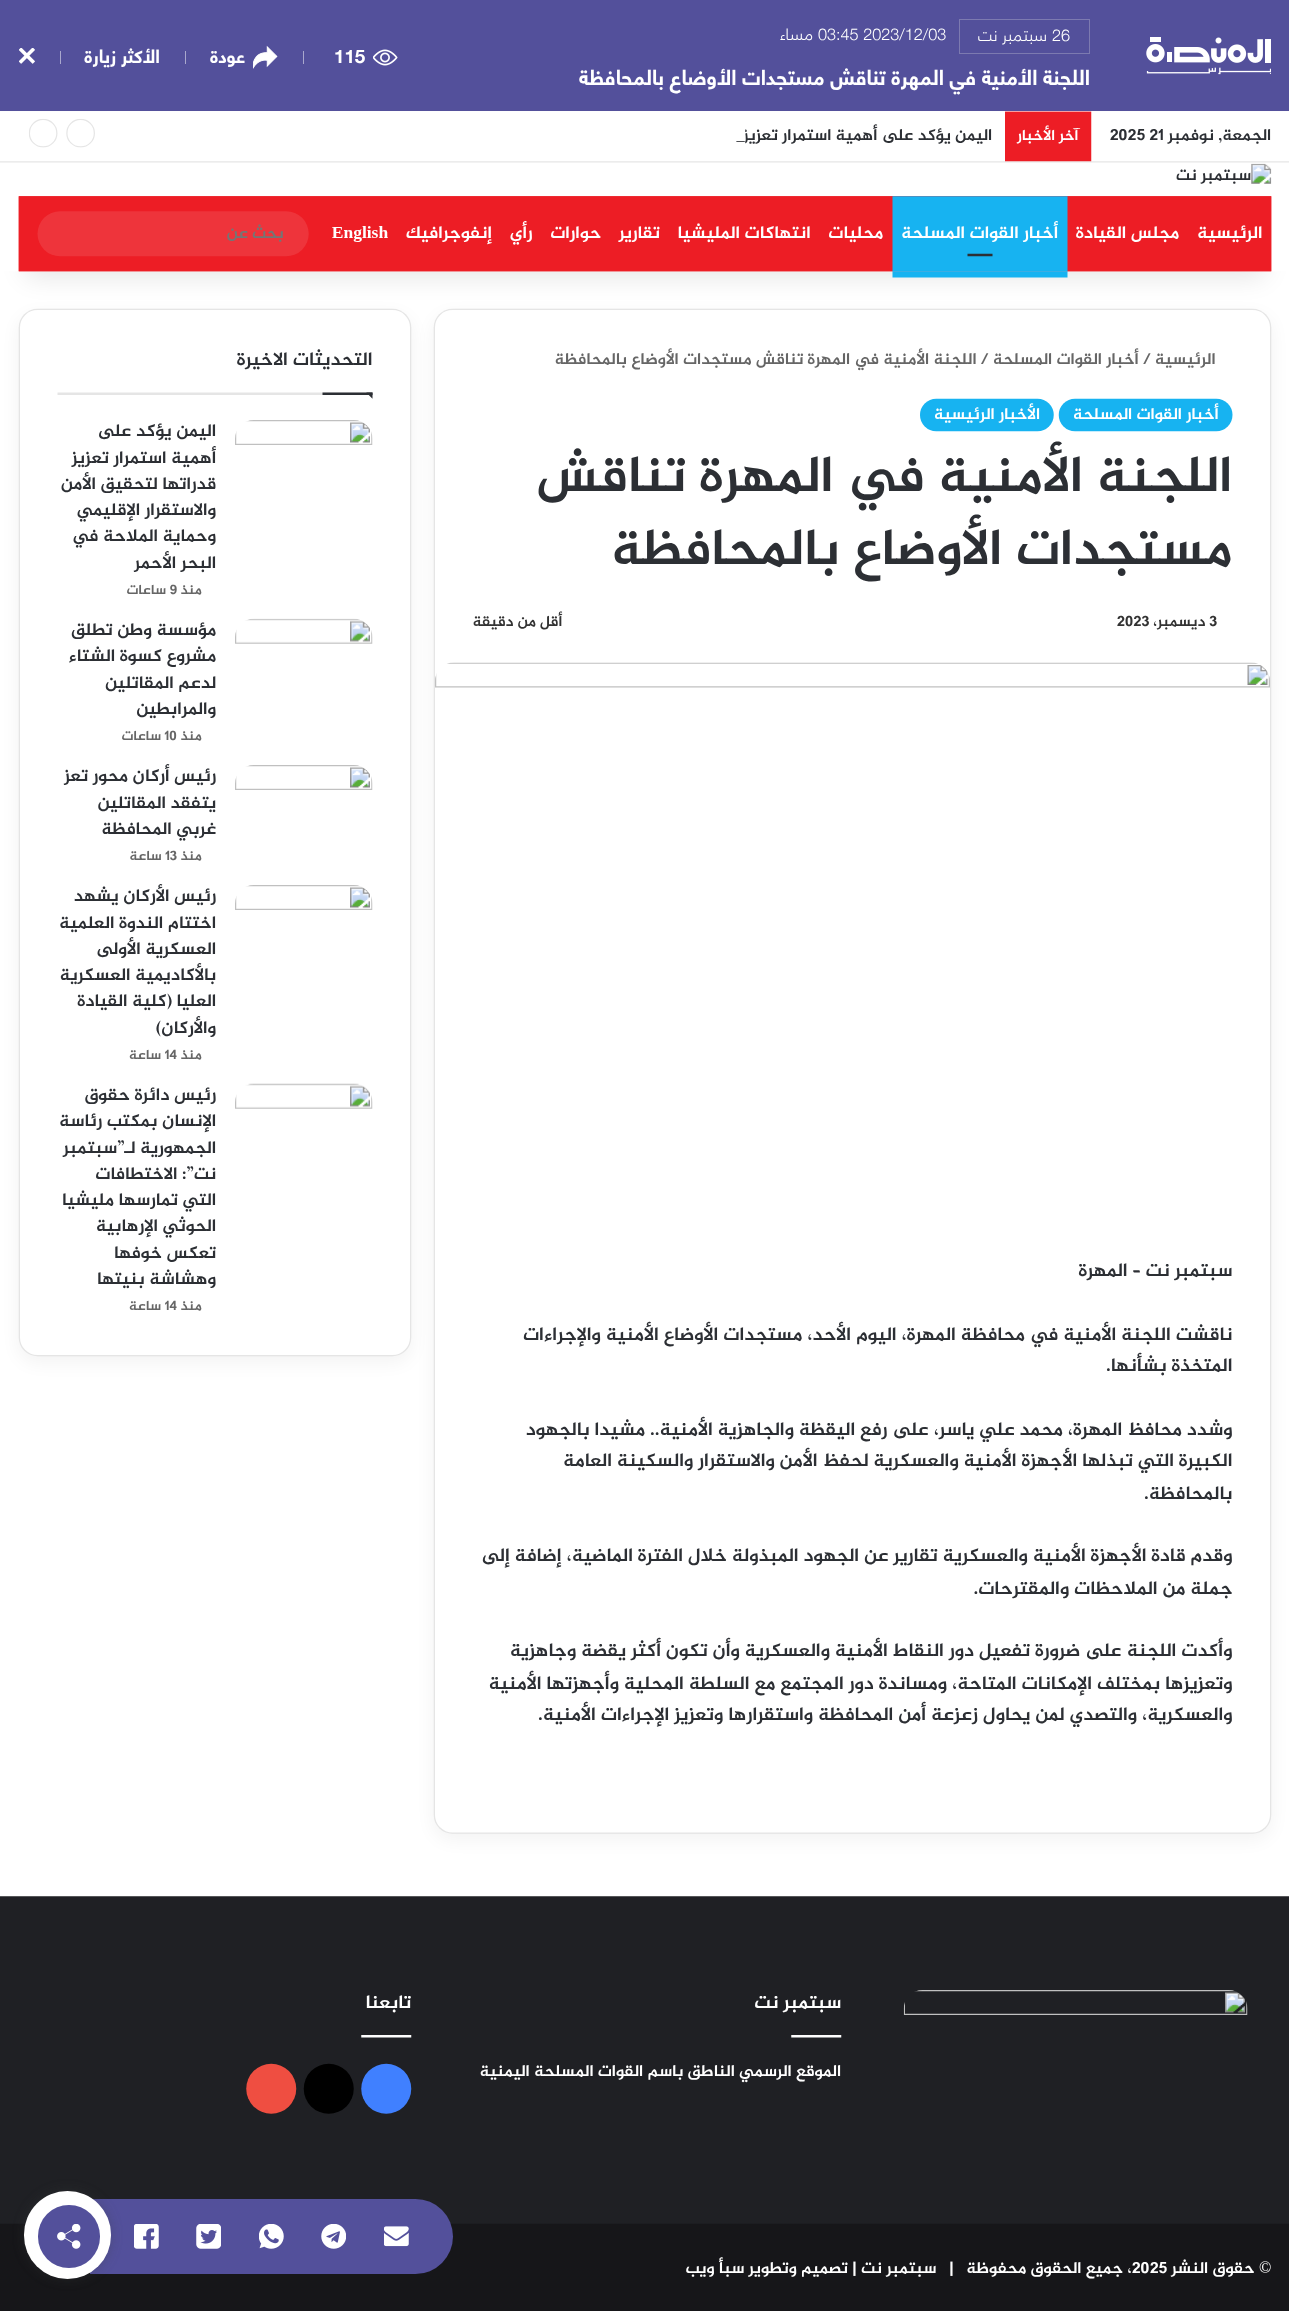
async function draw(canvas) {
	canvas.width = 1289;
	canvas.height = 2311;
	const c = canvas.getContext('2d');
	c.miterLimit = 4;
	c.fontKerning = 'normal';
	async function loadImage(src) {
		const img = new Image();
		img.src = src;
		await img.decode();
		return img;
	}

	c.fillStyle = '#fff';
	c.fillRect(0, 0, 1289, 2311);
	c.fillStyle = '#53509b';
	c.fillRect(0, 0, 1289, 111);
	c.drawImage(await loadImage('img1.png'), 1146, 37, 125, 38);
	c.strokeStyle = '#7c7ab0';
	c.strokeRect(959.5, 19.5, 130, 34);
	c.font = '300 16.25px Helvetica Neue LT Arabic';
	c.fillStyle = '#fff';
	c.fillText('26', 1052, 41);
	c.direction = 'rtl';
	c.fillText('سبتمبر نت', 1047, 41);
	c.direction = 'ltr';
	c.fillText('03:45 2023/12/03', 818, 40);
	c.direction = 'rtl';
	c.fillText('مساء', 813, 40);
	c.font = 'bold 21.25px Helvetica Neue LT Arabic';
	c.fillText('اللجنة الأمنية في المهرة تناقش مستجدات الأوضاع بالمحافظة', 1090, 85);
	c.drawImage(await loadImage('img2.png'), 373, 49, 25, 17);
	c.direction = 'ltr';
	c.font = 'bold 18.75px Helvetica Neue LT Arabic';
	c.fillText('115', 334, 63);
	c.fillStyle = '#a9a8cd';
	c.fillRect(303, 51, 1, 13);
	c.drawImage(await loadImage('img3.png'), 253, 45, 25, 24);
	c.direction = 'rtl';
	c.fillStyle = '#fff';
	c.fillText('عودة', 245, 63);
	c.fillStyle = '#a9a8cd';
	c.fillRect(185, 51, 1, 13);
	c.fillStyle = '#fff';
	c.fillText('الأكثر زيارة', 160, 63);
	c.fillStyle = '#a9a8cd';
	c.fillRect(60, 51, 1, 13);
	c.drawImage(await loadImage('img4.png'), 19, 48, 16, 16);
	c.drawImage(await loadImage('img5.png'), 0, 111, 1289, 2200);
	c.fillStyle = '#53509b';
	c.beginPath();
	c.roundRect(90, 2199, 363, 75, [0, 37.5, 37.5, 0]);
	c.fill();
	c.fillStyle = '#3c3f404d';
	c.filter = 'blur(6px)';
	c.beginPath();
	c.roundRect(24, 2191, 87, 88, 43.5);
	c.fill();
	c.filter = 'none';
	c.fillStyle = '#fff';
	c.beginPath();
	c.roundRect(24, 2191, 87, 88, 43.5);
	c.fill();
	c.drawImage(await loadImage('img6.png'), 384, 2226, 25, 21);
	c.drawImage(await loadImage('img7.png'), 321, 2224, 25, 25);
	c.drawImage(await loadImage('img8.png'), 259, 2224, 25, 25);
	c.drawImage(await loadImage('img9.png'), 196, 2224, 25, 25);
	c.drawImage(await loadImage('img10.png'), 134, 2224, 25, 25);
	c.fillStyle = '#53509b';
	c.beginPath();
	c.roundRect(38, 2205, 62, 63, 31);
	c.fill();
	c.drawImage(await loadImage('img11.png'), 57, 2224, 24, 25);
}

draw(document.querySelector('canvas'));
